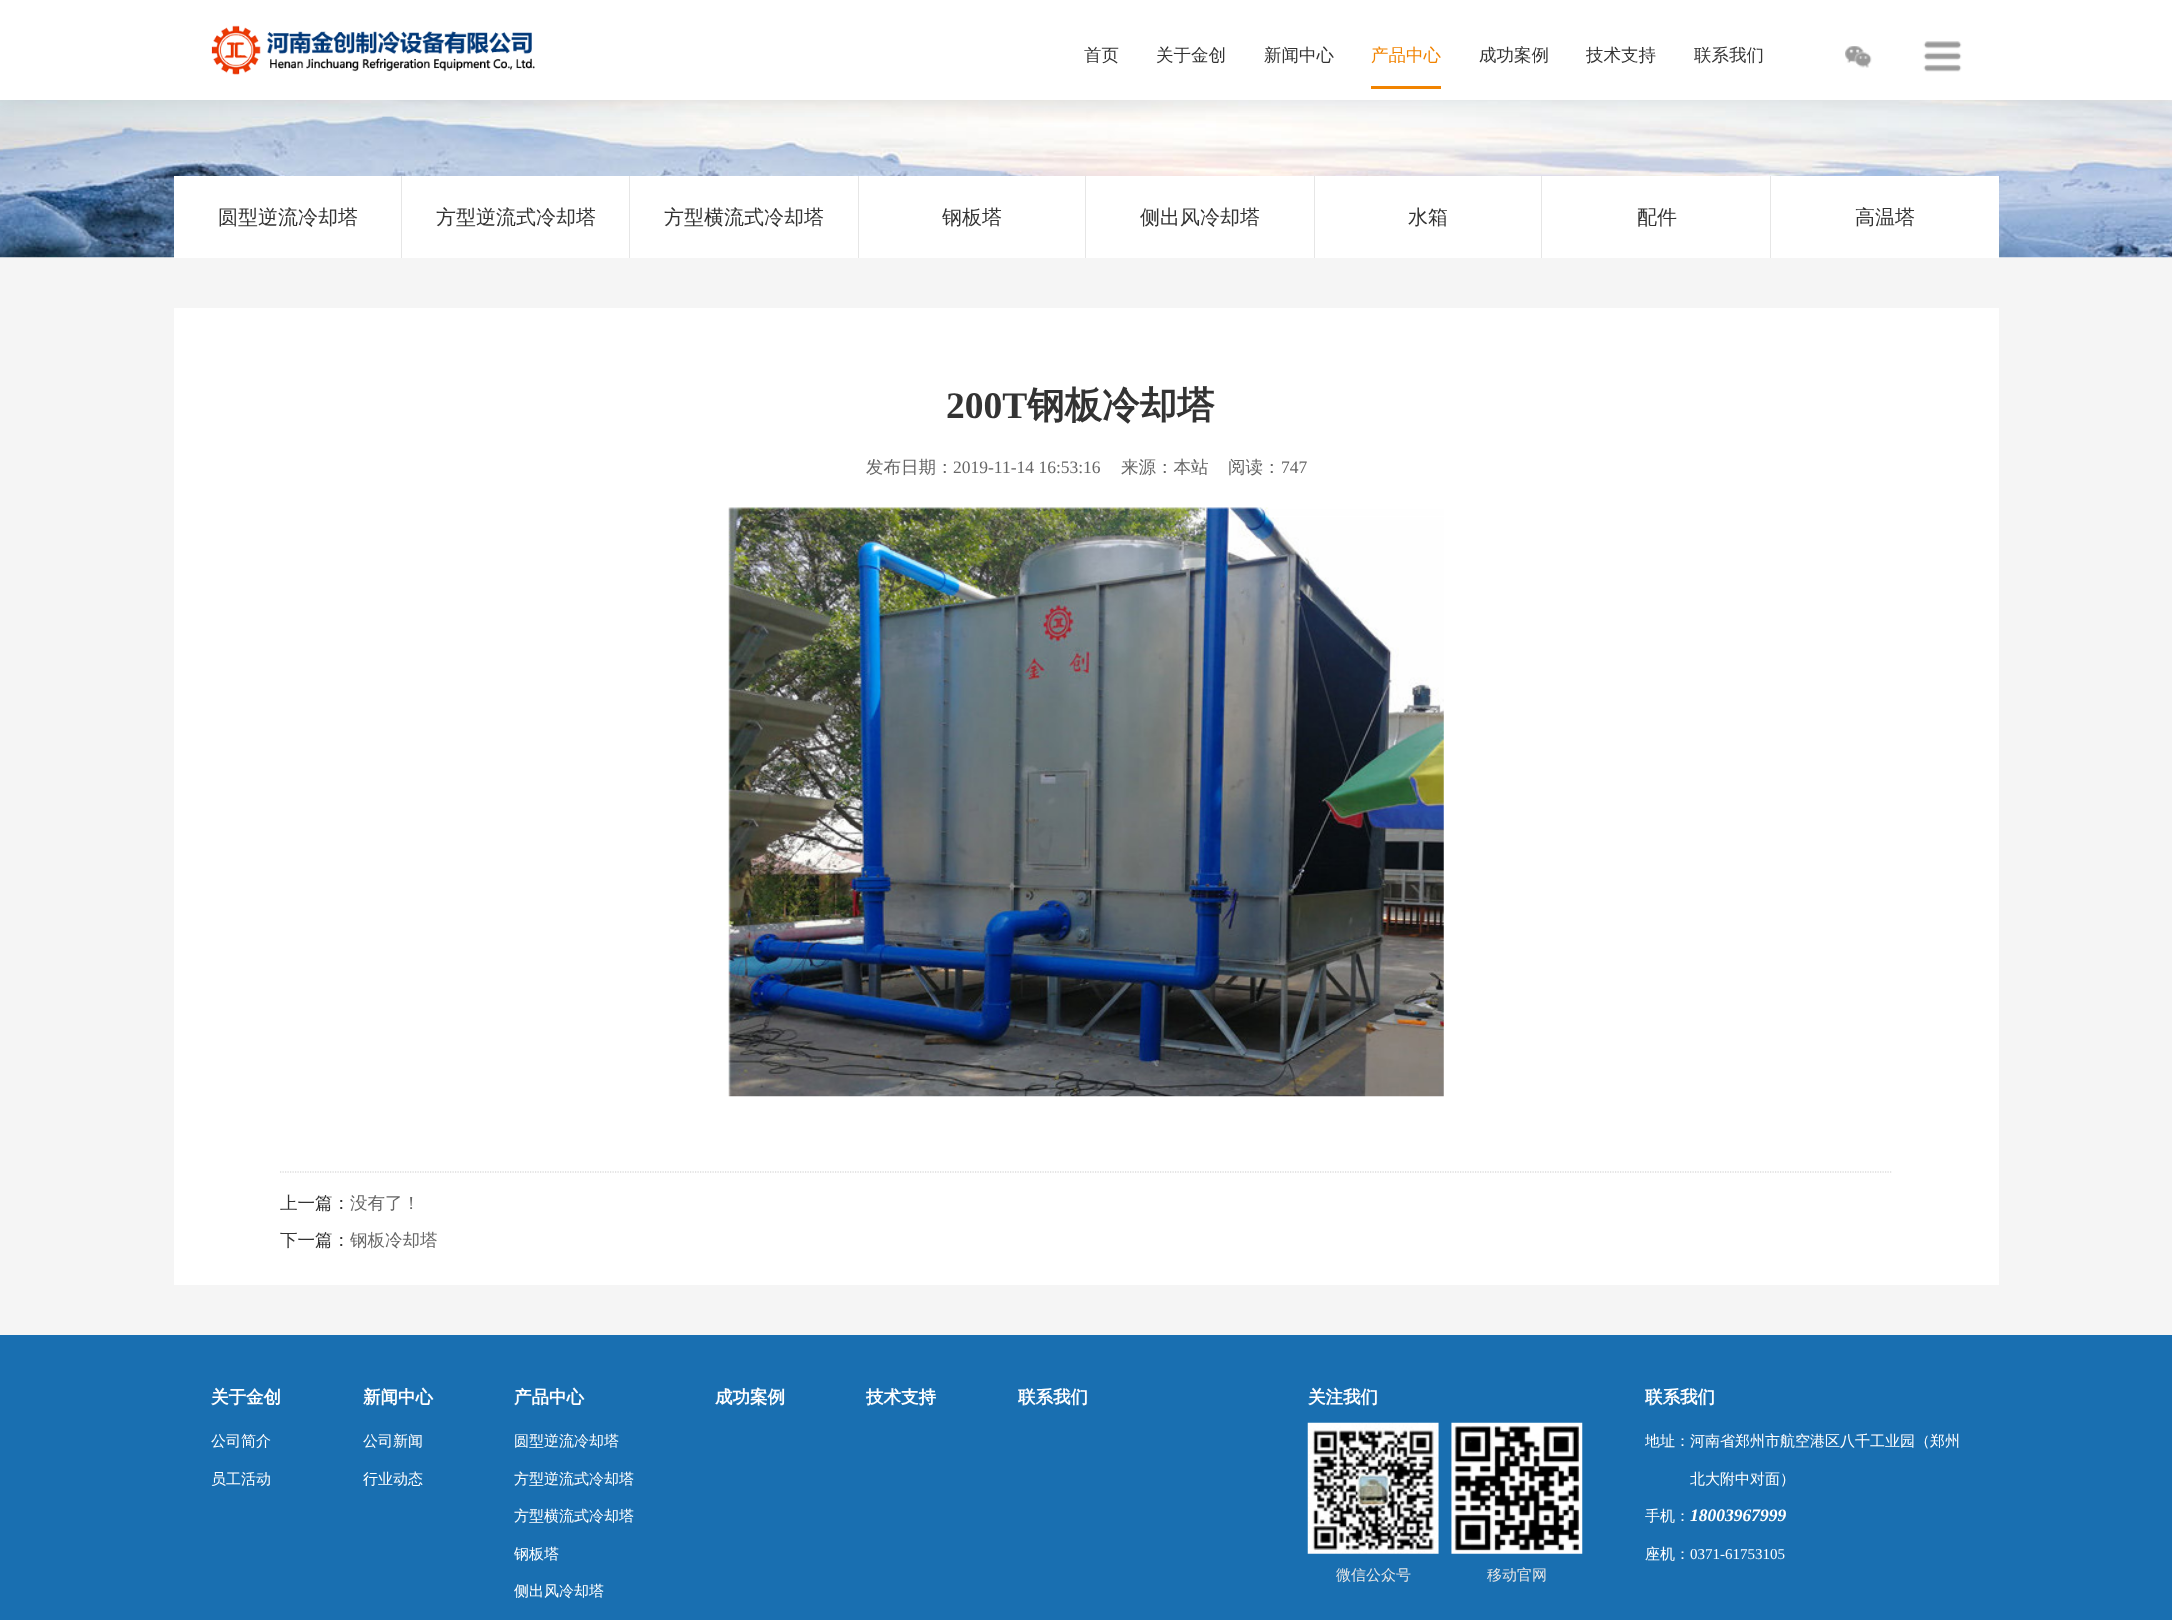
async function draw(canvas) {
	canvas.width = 2172;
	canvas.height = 1620;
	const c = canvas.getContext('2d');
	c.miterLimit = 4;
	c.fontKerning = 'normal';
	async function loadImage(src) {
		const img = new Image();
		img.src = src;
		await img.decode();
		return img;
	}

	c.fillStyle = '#f5f5f5';
	c.fillRect(0, 0, 2172, 1620);
	c.drawImage(await loadImage('img4.png'), 0, 100, 2172, 158);
	c.fillStyle = '#0000001a';
	c.filter = 'blur(12.5px)';
	c.beginPath();
	c.rect(0, 0, 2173, 100);
	c.fill();
	c.filter = 'none';
	c.fillStyle = '#fff';
	c.fillRect(0, 0, 2172, 100);
	c.drawImage(await loadImage('img1.png'), 211, 25, 324, 50);
	c.font = '500 17.5px WenQuanYi Zen Hei';
	c.fillStyle = '#333';
	for (const [text, x, y] of [
		['首页', 1084, 61],
		['关于金创', 1156, 61],
		['新闻中心', 1264, 61],
	]) {
		c.fillText(text, x, y);
	}
	c.fillStyle = '#f18300';
	c.fillText('产品中心', 1371, 61);
	c.fillRect(1371, 86, 70, 3);
	c.fillStyle = '#333';
	for (const [text, x, y] of [
		['成功案例', 1479, 61],
		['技术支持', 1586, 61],
		['联系我们', 1694, 61],
	]) {
		c.fillText(text, x, y);
	}
	c.drawImage(await loadImage('img2.png'), 1845, 46, 27, 22);
	c.drawImage(await loadImage('img3.png'), 1923, 41, 39, 31);
	c.fillStyle = '#fff';
	c.fillRect(174, 176, 1825, 82);
	c.font = '500 20px WenQuanYi Zen Hei';
	c.fillStyle = '#333';
	c.fillText('圆型逆流冷却塔', 218, 224);
	c.fillStyle = '#e6e6e6';
	c.fillRect(401, 176, 1, 82);
	c.fillStyle = '#333';
	c.fillText('方型逆流式冷却塔', 436, 224);
	c.fillStyle = '#e6e6e6';
	c.fillRect(629, 176, 1, 82);
	c.fillStyle = '#333';
	c.fillText('方型横流式冷却塔', 664, 224);
	c.fillStyle = '#e6e6e6';
	c.fillRect(858, 176, 1, 82);
	c.fillStyle = '#333';
	c.fillText('钢板塔', 942, 224);
	c.fillStyle = '#e6e6e6';
	c.fillRect(1085, 176, 1, 82);
	c.fillStyle = '#333';
	c.fillText('侧出风冷却塔', 1140, 224);
	c.fillStyle = '#e6e6e6';
	c.fillRect(1314, 176, 1, 82);
	c.fillStyle = '#333';
	c.fillText('水箱', 1408, 224);
	c.fillStyle = '#e6e6e6';
	c.fillRect(1541, 176, 1, 82);
	c.fillStyle = '#333';
	c.fillText('配件', 1637, 224);
	c.fillStyle = '#e6e6e6';
	c.fillRect(1770, 176, 1, 82);
	c.fillStyle = '#333';
	c.fillText('高温塔', 1855, 224);
	c.fillStyle = '#fff';
	c.fillRect(174, 308, 1825, 977);
	c.font = 'bold 37.5px Liberation Serif';
	c.fillStyle = '#333';
	c.fillText('200T', 946, 418);
	c.font = 'bold 37.5px WenQuanYi Zen Hei';
	c.fillText('钢板冷却塔', 1027, 418);
	c.font = '500 17.5px WenQuanYi Zen Hei';
	c.fillStyle = '#666';
	c.fillText('发布日期：', 866, 473);
	c.font = '17.5px Liberation Serif';
	c.fillText('2019-11-14 16:53:16', 953, 473);
	c.font = '500 17.5px WenQuanYi Zen Hei';
	c.fillText('来源：本站', 1121, 473);
	c.fillText('阅读：', 1228, 473);
	c.font = '17.5px Liberation Serif';
	c.fillText('747', 1281, 473);
	c.drawImage(await loadImage('img5.png'), 728, 507, 716, 590);
	c.beginPath();
	c.moveTo(280, 1172);
	c.lineTo(1892.5, 1172);
	c.strokeStyle = '#ccc';
	c.lineWidth = 1.2;
	c.setLineDash([1.25, 1.25]);
	c.stroke();
	c.font = '500 17.5px WenQuanYi Zen Hei';
	c.fillStyle = '#333';
	c.fillText('上一篇：', 280, 1209);
	c.fillStyle = '#666';
	c.fillText('没有了！', 350, 1209);
	c.fillStyle = '#333';
	c.fillText('下一篇：', 280, 1246);
	c.fillStyle = '#666';
	c.fillText('钢板冷却塔', 350, 1246);
	c.fillStyle = '#196fb1';
	c.fillRect(0, 1335, 2172, 285);
	c.font = 'bold 17.5px WenQuanYi Zen Hei';
	c.fillStyle = '#fff';
	c.fillText('关于金创', 211, 1403);
	c.font = '500 15px WenQuanYi Zen Hei';
	c.fillText('公司简介', 211, 1446);
	c.fillText('员工活动', 211, 1484);
	c.font = 'bold 17.5px WenQuanYi Zen Hei';
	c.fillText('新闻中心', 363, 1403);
	c.font = '500 15px WenQuanYi Zen Hei';
	c.fillText('公司新闻', 363, 1446);
	c.fillText('行业动态', 363, 1484);
	c.font = 'bold 17.5px WenQuanYi Zen Hei';
	c.fillText('产品中心', 514, 1403);
	c.font = '500 15px WenQuanYi Zen Hei';
	for (const [text, x, y] of [
		['圆型逆流冷却塔', 514, 1446],
		['方型逆流式冷却塔', 514, 1484],
		['方型横流式冷却塔', 514, 1521],
		['钢板塔', 514, 1559],
		['侧出风冷却塔', 514, 1596],
	]) {
		c.fillText(text, x, y);
	}
	c.font = 'bold 17.5px WenQuanYi Zen Hei';
	c.fillText('成功案例', 715, 1403);
	c.fillText('技术支持', 866, 1403);
	c.save();
	c.beginPath();
	c.rect(1018, 1379, 70, 37);
	c.clip();
	c.fillText('联系我们', 1018, 1403);
	c.restore();
	c.fillText('关注我们', 1308, 1403);
	c.drawImage(await loadImage('img6.png'), 1307, 1422, 132, 132);
	c.font = '500 15px WenQuanYi Zen Hei';
	c.fillStyle = '#e5e5e5';
	c.fillText('微信公众号', 1336, 1580);
	c.drawImage(await loadImage('img7.png'), 1451, 1422, 132, 132);
	c.fillText('移动官网', 1487, 1580);
	c.font = 'bold 17.5px WenQuanYi Zen Hei';
	c.fillStyle = '#fff';
	c.fillText('联系我们', 1645, 1403);
	c.font = '500 15px WenQuanYi Zen Hei';
	for (const [text, x, y] of [
		['地址：河南省郑州市航空港区八千工业园（郑州', 1645, 1446],
		['北大附中对面）', 1690, 1484],
		['手机：', 1645, 1521],
	]) {
		c.fillText(text, x, y);
	}
	c.font = 'italic bold 17.5px Liberation Serif';
	c.fillText('18003967999', 1690, 1521);
	c.font = '500 15px WenQuanYi Zen Hei';
	c.fillText('座机：', 1645, 1559);
	c.font = '15px Liberation Serif';
	c.fillText('0371-61753105', 1690, 1559);
}

draw(document.querySelector('canvas'));
